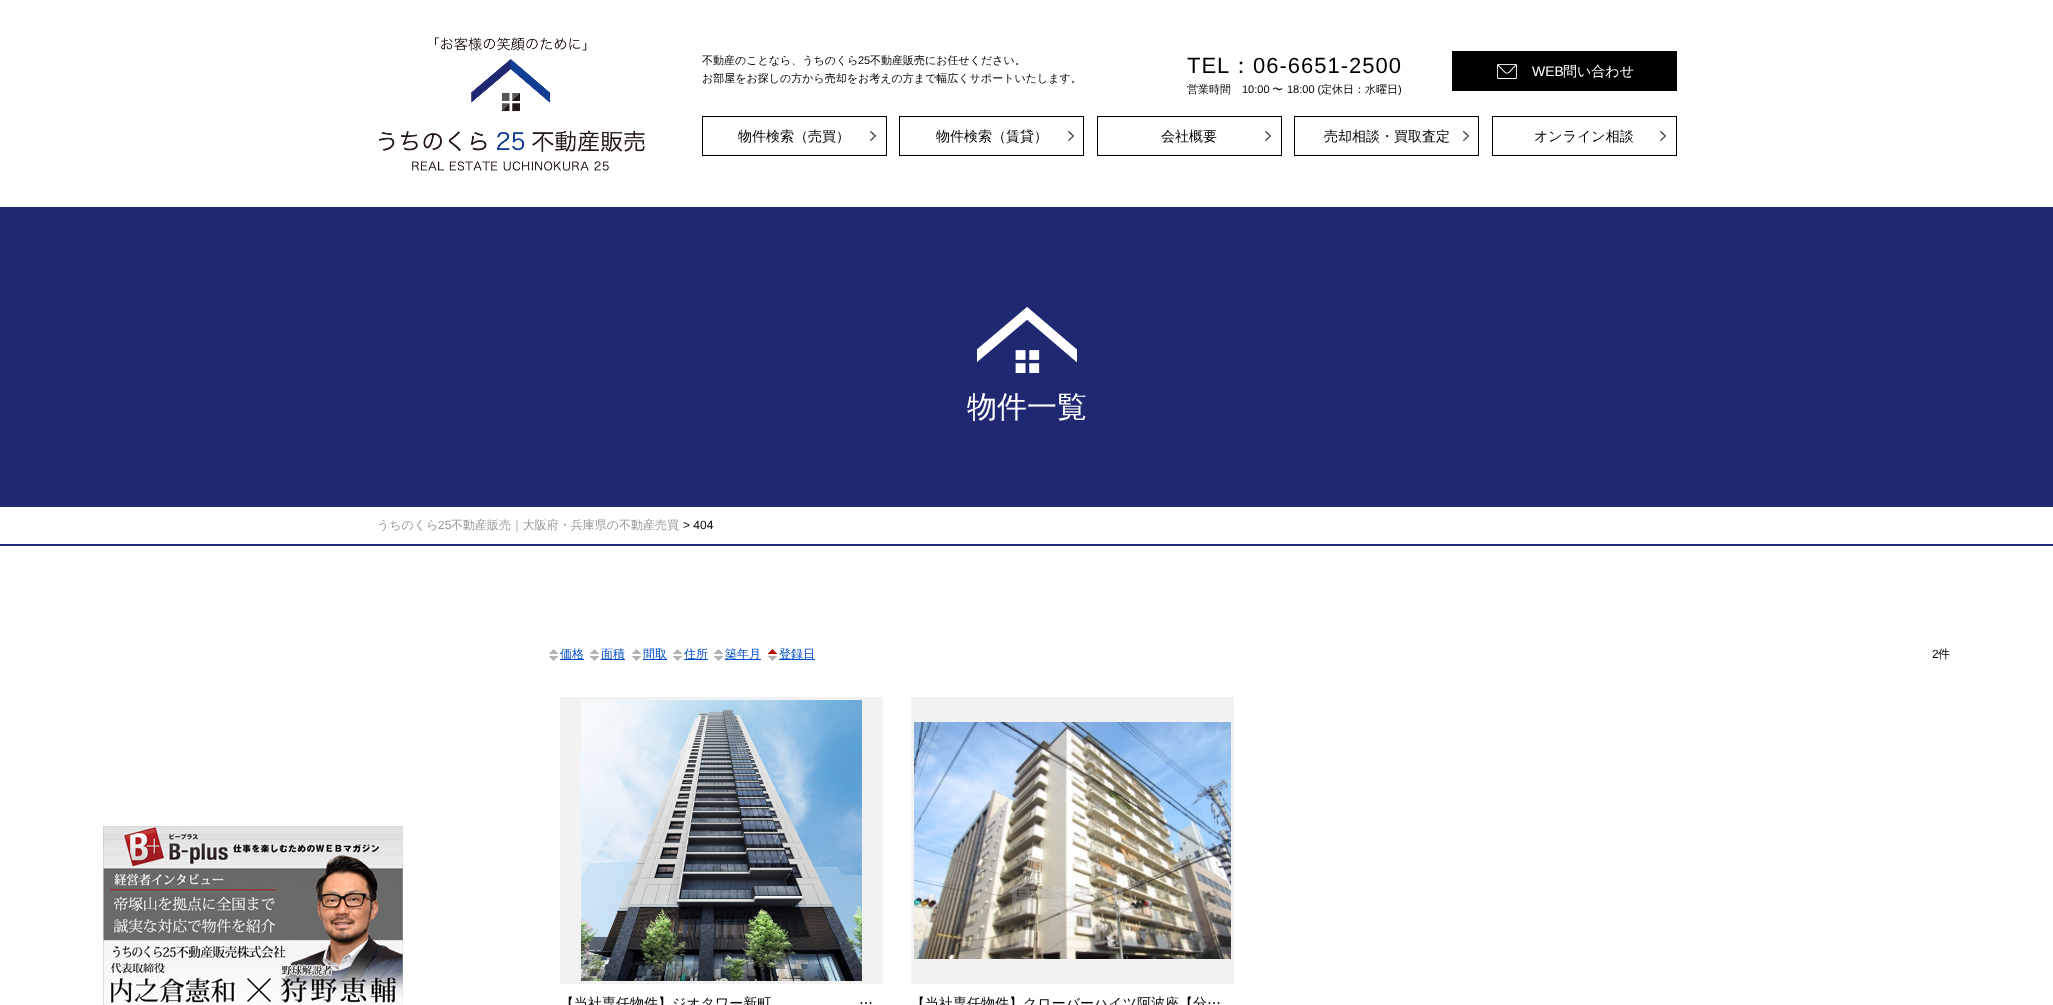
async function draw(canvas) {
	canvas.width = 2053;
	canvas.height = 1005;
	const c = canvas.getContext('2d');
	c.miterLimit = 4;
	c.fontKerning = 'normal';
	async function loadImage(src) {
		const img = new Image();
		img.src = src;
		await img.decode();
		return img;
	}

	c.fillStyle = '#fff';
	c.fillRect(0, 0, 2053, 1005);
	c.drawImage(await loadImage('img1.png'), 379, 37, 266, 134);
	c.font = '500 11px WenQuanYi Zen Hei';
	c.fillStyle = '#000';
	c.fillText('不動産のことなら、うちのくら', 702, 64);
	c.font = '11px Liberation Sans';
	c.fillText('25', 858, 64);
	c.font = '500 11px WenQuanYi Zen Hei';
	c.fillText('不動産販売にお任せください。', 870, 64);
	c.fillText('お部屋をお探しの方から売却をお考えの方まで幅広くサポートいたします。', 702, 82);
	c.letterSpacing = '1px';
	c.font = '22px Liberation Sans';
	c.fillText('TEL', 1187, 73);
	c.font = '500 22px WenQuanYi Zen Hei';
	c.fillText('：', 1230, 73);
	c.font = '22px Liberation Sans';
	c.fillText('06-6651-2500', 1253, 73);
	c.letterSpacing = '0px';
	c.font = '500 11px WenQuanYi Zen Hei';
	c.fillText('営業時間', 1187, 93);
	c.font = '11px Liberation Sans';
	c.fillText('10:00', 1242, 93);
	c.font = '500 11px WenQuanYi Zen Hei';
	c.fillText('〜', 1272, 93);
	c.font = '11px Liberation Sans';
	c.fillText('18:00 (', 1287, 93);
	c.font = '500 11px WenQuanYi Zen Hei';
	c.fillText('定休日：水曜日', 1321, 93);
	c.font = '11px Liberation Sans';
	c.fillText(')', 1398, 93);
	c.fillRect(1452, 51, 225, 40);
	c.drawImage(await loadImage('img2.png'), 1497, 64, 20, 15);
	c.font = '14px Liberation Sans';
	c.fillStyle = '#fff';
	c.fillText('WEB', 1532, 76);
	c.font = '500 14px WenQuanYi Zen Hei';
	c.fillText('問い合わせ', 1563, 76);
	c.drawImage(await loadImage('img3.png'), 870, 131, 6, 10);
	c.strokeStyle = '#000';
	c.strokeRect(702.5, 116.5, 184, 39);
	c.fillStyle = '#000';
	c.fillText('物件検索（売買）', 738, 141);
	c.drawImage(await loadImage('img4.png'), 1068, 131, 6, 10);
	c.strokeRect(899.5, 116.5, 184, 39);
	c.fillText('物件検索（賃貸）', 936, 141);
	c.drawImage(await loadImage('img3.png'), 1265, 131, 6, 10);
	c.strokeRect(1097.5, 116.5, 184, 39);
	c.fillText('会社概要', 1161, 141);
	c.drawImage(await loadImage('img4.png'), 1463, 131, 6, 10);
	c.strokeRect(1294.5, 116.5, 184, 39);
	c.fillText('売却相談・買取査定', 1324, 141);
	c.drawImage(await loadImage('img4.png'), 1660, 131, 6, 10);
	c.strokeRect(1492.5, 116.5, 184, 39);
	c.fillText('オンライン相談', 1534, 141);
	c.fillStyle = '#1f2871';
	c.fillRect(0, 207, 2053, 300);
	c.drawImage(await loadImage('img5.png'), 977, 307, 100, 66);
	c.font = '500 30px WenQuanYi Zen Hei';
	c.fillStyle = '#fff';
	c.fillText('物件一覧', 967, 417);
	c.fillStyle = '#1f2871';
	c.fillRect(0, 544, 2053, 2);
	c.font = '500 12px WenQuanYi Zen Hei';
	c.fillStyle = '#999';
	c.fillText('うちのくら', 377, 529);
	c.font = '12px Liberation Sans';
	c.fillText('25', 438, 529);
	c.font = '500 12px WenQuanYi Zen Hei';
	c.fillText('不動産販売｜大阪府・兵庫県の不動産売買', 451, 529);
	c.font = '12px Liberation Sans';
	c.fillStyle = '#000';
	c.fillText('> 404', 683, 529);
	c.drawImage(await loadImage('img6.png'), 103, 826, 300, 179);
	c.drawImage(await loadImage('img7.png'), 549, 649, 9, 12);
	c.fillStyle = '#004cca';
	c.fillRect(560, 659, 24, 1);
	c.font = '500 12px WenQuanYi Zen Hei';
	c.fillText('価格', 560, 658);
	c.drawImage(await loadImage('img7.png'), 590, 649, 9, 12);
	c.fillRect(601, 659, 24, 1);
	c.fillText('面積', 601, 658);
	c.drawImage(await loadImage('img7.png'), 632, 649, 9, 12);
	c.fillRect(643, 659, 24, 1);
	c.fillText('間取', 643, 658);
	c.drawImage(await loadImage('img7.png'), 673, 649, 9, 12);
	c.fillRect(684, 659, 24, 1);
	c.fillText('住所', 684, 658);
	c.drawImage(await loadImage('img7.png'), 714, 649, 9, 12);
	c.fillRect(725, 659, 36, 1);
	c.fillText('築年月', 725, 658);
	c.drawImage(await loadImage('img8.png'), 768, 649, 9, 12);
	c.fillRect(779, 659, 36, 1);
	c.fillText('登録日', 779, 658);
	c.font = '12px Liberation Sans';
	c.fillStyle = '#000';
	c.fillText('2', 1932, 658);
	c.font = '500 12px WenQuanYi Zen Hei';
	c.fillText('件', 1938, 658);
	c.fillStyle = '#f2f2f2';
	c.fillRect(560, 697, 323, 287);
	c.drawImage(await loadImage('img9.png'), 581, 700, 281, 281);
	c.font = '500 14px WenQuanYi Zen Hei';
	c.fillStyle = '#000';
	c.fillText('【当社専任物件】ジオタワー新町', 560, 1008);
	c.fillText('…', 859, 1008);
	c.fillStyle = '#f2f2f2';
	c.fillRect(911, 697, 323, 287);
	c.drawImage(await loadImage('img10.png'), 914, 722, 317, 237);
	c.fillStyle = '#000';
	c.fillText('【当社専任物件】クローバーハイツ阿波座【分…', 911, 1008);
}

draw(document.querySelector('canvas'));
